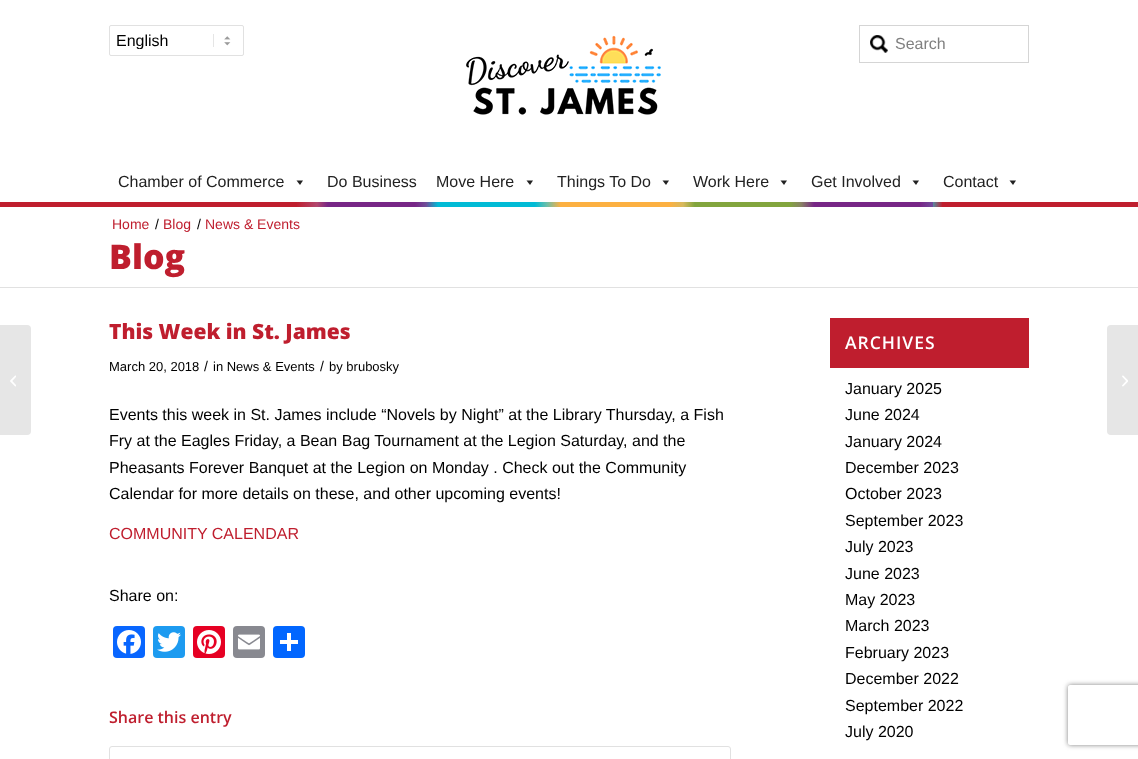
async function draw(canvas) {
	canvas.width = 1138;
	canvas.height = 759;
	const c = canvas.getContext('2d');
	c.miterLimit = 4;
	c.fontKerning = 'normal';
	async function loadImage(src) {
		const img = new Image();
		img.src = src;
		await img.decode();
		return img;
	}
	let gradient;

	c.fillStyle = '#fff';
	c.fillRect(0, 0, 1138, 759);
	c.drawImage(await loadImage('img1.png'), 213, 34, 18, 13);
	c.beginPath();
	c.roundRect(109.5, 25.5, 134, 30, 1.5);
	c.strokeStyle = '#e1e1e1';
	c.stroke();
	c.save();
	c.beginPath();
	c.rect(116, 32, 121, 17);
	c.clip();
	c.font = '16px Liberation Sans';
	c.fillStyle = '#000';
	c.fillText('English', 116, 46);
	c.restore();
	c.drawImage(await loadImage('img2.png'), 466, 35, 195, 80);
	c.drawImage(await loadImage('img3.png'), 870, 35, 18, 18);
	c.strokeStyle = '#d5d5d5';
	c.strokeRect(859.5, 25.5, 169, 37);
	c.font = '16px Liberation Sans';
	c.fillStyle = '#808080';
	c.fillText('Search', 895, 49);
	c.fillStyle = '#bf1e2e';
	c.fillRect(0, 202, 1138, 5);
	c.fillStyle = '#222';
	c.fillText('Chamber of Commerce', 118, 187);
	c.beginPath();
	c.moveTo(303, 180.5);
	c.lineTo(300, 185);
	c.lineTo(296.5, 180.5);
	c.closePath();
	c.fill();
	gradient = c.createLinearGradient(108, 205, 317, 205);
	gradient.addColorStop(0, '#bf1e2e');
	gradient.addColorStop(0.9, '#bf1e2e');
	gradient.addColorStop(1, '#b2476e');
	c.fillStyle = gradient;
	c.fillRect(297, 202, 20, 5);
	c.fillStyle = '#222';
	c.fillText('Do Business', 327, 187);
	gradient = c.createLinearGradient(317, 205, 426, 205);
	gradient.addColorStop(0, '#b2476e');
	gradient.addColorStop(0.1, '#772686');
	gradient.addColorStop(0.9, '#772686');
	gradient.addColorStop(1, '#704d98');
	c.fillStyle = gradient;
	c.fillRect(317, 202, 109, 5);
	c.fillStyle = '#222';
	c.fillText('Move Here', 436, 187);
	c.beginPath();
	c.moveTo(533, 180.5);
	c.lineTo(530, 185);
	c.lineTo(526.5, 180.5);
	c.closePath();
	c.fill();
	gradient = c.createLinearGradient(426, 205, 547, 205);
	gradient.addColorStop(0, '#704d98');
	gradient.addColorStop(0.1, '#01bbd6');
	gradient.addColorStop(0.9, '#01bbd6');
	gradient.addColorStop(1, '#6dbea8');
	c.fillStyle = gradient;
	c.fillRect(426, 202, 121, 5);
	c.fillStyle = '#222';
	c.fillText('Things To Do', 557, 187);
	c.beginPath();
	c.moveTo(669, 180.5);
	c.lineTo(666, 185);
	c.lineTo(662.5, 180.5);
	c.closePath();
	c.fill();
	gradient = c.createLinearGradient(547, 205, 683, 205);
	gradient.addColorStop(0, '#6dbea8');
	gradient.addColorStop(0.1, '#fcb041');
	gradient.addColorStop(0.9, '#fcb041');
	gradient.addColorStop(1, '#d7b95e');
	c.fillStyle = gradient;
	c.fillRect(547, 202, 136, 5);
	c.fillStyle = '#222';
	c.fillText('Work Here', 693, 187);
	c.beginPath();
	c.moveTo(787, 180.5);
	c.lineTo(784, 185);
	c.lineTo(780.5, 180.5);
	c.closePath();
	c.fill();
	gradient = c.createLinearGradient(683, 205, 801, 205);
	gradient.addColorStop(0, '#d7b95e');
	gradient.addColorStop(0.1, '#82a53d');
	gradient.addColorStop(0.9, '#82a53d');
	gradient.addColorStop(1, '#898364');
	c.fillStyle = gradient;
	c.fillRect(683, 202, 118, 5);
	c.fillStyle = '#222';
	c.fillText('Get Involved', 811, 187);
	c.beginPath();
	c.moveTo(919, 180.5);
	c.lineTo(916, 185);
	c.lineTo(912.5, 180.5);
	c.closePath();
	c.fill();
	gradient = c.createLinearGradient(801, 205, 933, 205);
	gradient.addColorStop(0, '#898364');
	gradient.addColorStop(0.1, '#772686');
	gradient.addColorStop(0.9, '#772686');
	gradient.addColorStop(1, '#724b9c');
	c.fillStyle = gradient;
	c.fillRect(801, 202, 132, 5);
	c.fillStyle = '#222';
	c.fillText('Contact', 943, 187);
	c.beginPath();
	c.moveTo(1016, 180.5);
	c.lineTo(1013, 185);
	c.lineTo(1009.5, 180.5);
	c.closePath();
	c.fill();
	gradient = c.createLinearGradient(933, 205, 1030, 205);
	gradient.addColorStop(0, '#578ba0');
	gradient.addColorStop(0.1, '#bf1e2e');
	gradient.addColorStop(1, '#bf1e2e');
	c.fillStyle = gradient;
	c.fillRect(933, 202, 9, 5);
	c.fillStyle = '#e6e6e6';
	c.beginPath();
	c.roundRect(0, 325, 31, 110, [0, 4, 4, 0]);
	c.fill();
	c.drawImage(await loadImage('img4.png'), 10, 375, 6, 12);
	c.font = '14px Liberation Sans';
	c.fillStyle = '#bf1e2e';
	c.fillText('Home', 112, 229);
	c.fillStyle = '#000';
	c.fillText('/', 155, 229);
	c.fillStyle = '#bf1e2e';
	c.fillText('Blog', 163, 229);
	c.fillStyle = '#000';
	c.fillText('/', 197, 229);
	c.fillStyle = '#bf1e2e';
	c.fillText('News & Events', 205, 229);
	c.font = '800 34px Open Sans';
	c.fillText('Blog', 109, 269);
	c.fillStyle = '#e1e1e1';
	c.fillRect(0, 287, 1138, 1);
	c.font = '800 21px Open Sans';
	c.fillStyle = '#bf1e2e';
	c.fillText('This Week in St. James', 109, 339);
	c.font = '13px Liberation Sans';
	c.fillStyle = '#000';
	c.fillText('March 20, 2018', 109, 371);
	c.font = '14px Liberation Sans';
	c.fillText('/', 204, 371);
	c.font = '13px Liberation Sans';
	c.fillText('in News & Events', 213, 371);
	c.font = '14px Liberation Sans';
	c.fillText('/', 320, 371);
	c.font = '13px Liberation Sans';
	c.fillText('by brubosky', 329, 371);
	c.font = '16px Liberation Sans';
	for (const [text, x, y] of [
		['Events this week in St. James include “Novels by Night” at the Library Thursday, a Fish', 109, 420],
		['Fry at the Eagles Friday, a Bean Bag Tournament at the Legion Saturday, and the', 109, 446],
		['Pheasants Forever Banquet at the Legion on Monday . Check out the Community', 109, 473],
		['Calendar for more details on these, and other upcoming events!', 109, 499],
	]) {
		c.fillText(text, x, y);
	}
	c.fillStyle = '#bf1e2e';
	c.fillText('COMMUNITY CALENDAR', 109, 539);
	c.fillStyle = '#000';
	c.fillText('Share on:', 109, 601);
	c.fillStyle = '#0866ff';
	c.beginPath();
	c.roundRect(113, 626, 32, 32, 4);
	c.fill();
	c.drawImage(await loadImage('img5.png'), 117, 630, 24, 24);
	c.fillStyle = '#1d9bf0';
	c.beginPath();
	c.roundRect(153, 626, 32, 32, 4);
	c.fill();
	c.drawImage(await loadImage('img6.png'), 157, 632, 24, 20);
	c.fillStyle = '#e60023';
	c.beginPath();
	c.roundRect(193, 626, 32, 32, 4);
	c.fill();
	c.drawImage(await loadImage('img7.png'), 197, 630, 24, 24);
	c.fillStyle = '#888990';
	c.beginPath();
	c.roundRect(233, 626, 32, 32, 4);
	c.fill();
	c.drawImage(await loadImage('img8.png'), 238, 634, 22, 16);
	c.fillStyle = '#0166ff';
	c.beginPath();
	c.roundRect(273, 626, 32, 32, 4);
	c.fill();
	c.fillStyle = '#fff';
	c.fillRect(287, 633, 4, 18);
	c.fillRect(280, 640, 18, 4);
	c.font = '600 16px Open Sans';
	c.fillStyle = '#bf1e2e';
	c.fillText('Share this entry', 109, 723);
	c.beginPath();
	c.roundRect(109.5, 746.5, 621, 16, 2.5);
	c.strokeStyle = '#e1e1e1';
	c.stroke();
	c.fillRect(830, 318, 199, 50);
	c.letterSpacing = '1px';
	c.font = '600 17.5px Open Sans';
	c.fillStyle = '#fff';
	c.fillText('ARCHIVES', 845, 349);
	c.letterSpacing = '0px';
	c.font = '16px Liberation Sans';
	c.fillStyle = '#000';
	for (const [text, x, y] of [
		['January 2025', 845, 394],
		['June 2024', 845, 420],
		['January 2024', 845, 447],
		['December 2023', 845, 473],
		['October 2023', 845, 499],
		['September 2023', 845, 526],
		['July 2023', 845, 552],
		['June 2023', 845, 579],
		['May 2023', 845, 605],
		['March 2023', 845, 631],
		['February 2023', 845, 658],
		['December 2022', 845, 684],
		['September 2022', 845, 711],
		['July 2020', 845, 737],
	]) {
		c.fillText(text, x, y);
	}
	c.fillStyle = '#e6e6e6';
	c.beginPath();
	c.roundRect(1107, 325, 31, 110, [4, 0, 0, 4]);
	c.fill();
	c.drawImage(await loadImage('img9.png'), 1122, 375, 6, 12);
	c.save();
	c.beginPath();
	c.moveTo(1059, 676);
	c.lineTo(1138, 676);
	c.lineTo(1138, 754);
	c.lineTo(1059, 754);
	c.closePath();
	c.moveTo(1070, 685);
	c.lineTo(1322, 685);
	c.bezierCurveTo(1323, 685, 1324, 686, 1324, 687);
	c.lineTo(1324, 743);
	c.bezierCurveTo(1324, 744, 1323, 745, 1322, 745);
	c.lineTo(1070, 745);
	c.bezierCurveTo(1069, 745, 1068, 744, 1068, 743);
	c.lineTo(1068, 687);
	c.bezierCurveTo(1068, 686, 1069, 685, 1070, 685);
	c.closePath();
	c.clip('evenodd');
	c.fillStyle = '#808080';
	c.filter = 'blur(2.5px)';
	c.beginPath();
	c.roundRect(1068, 685, 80, 60, 2);
	c.fill();
	c.filter = 'none';
	c.restore();
}

draw(document.querySelector('canvas'));
